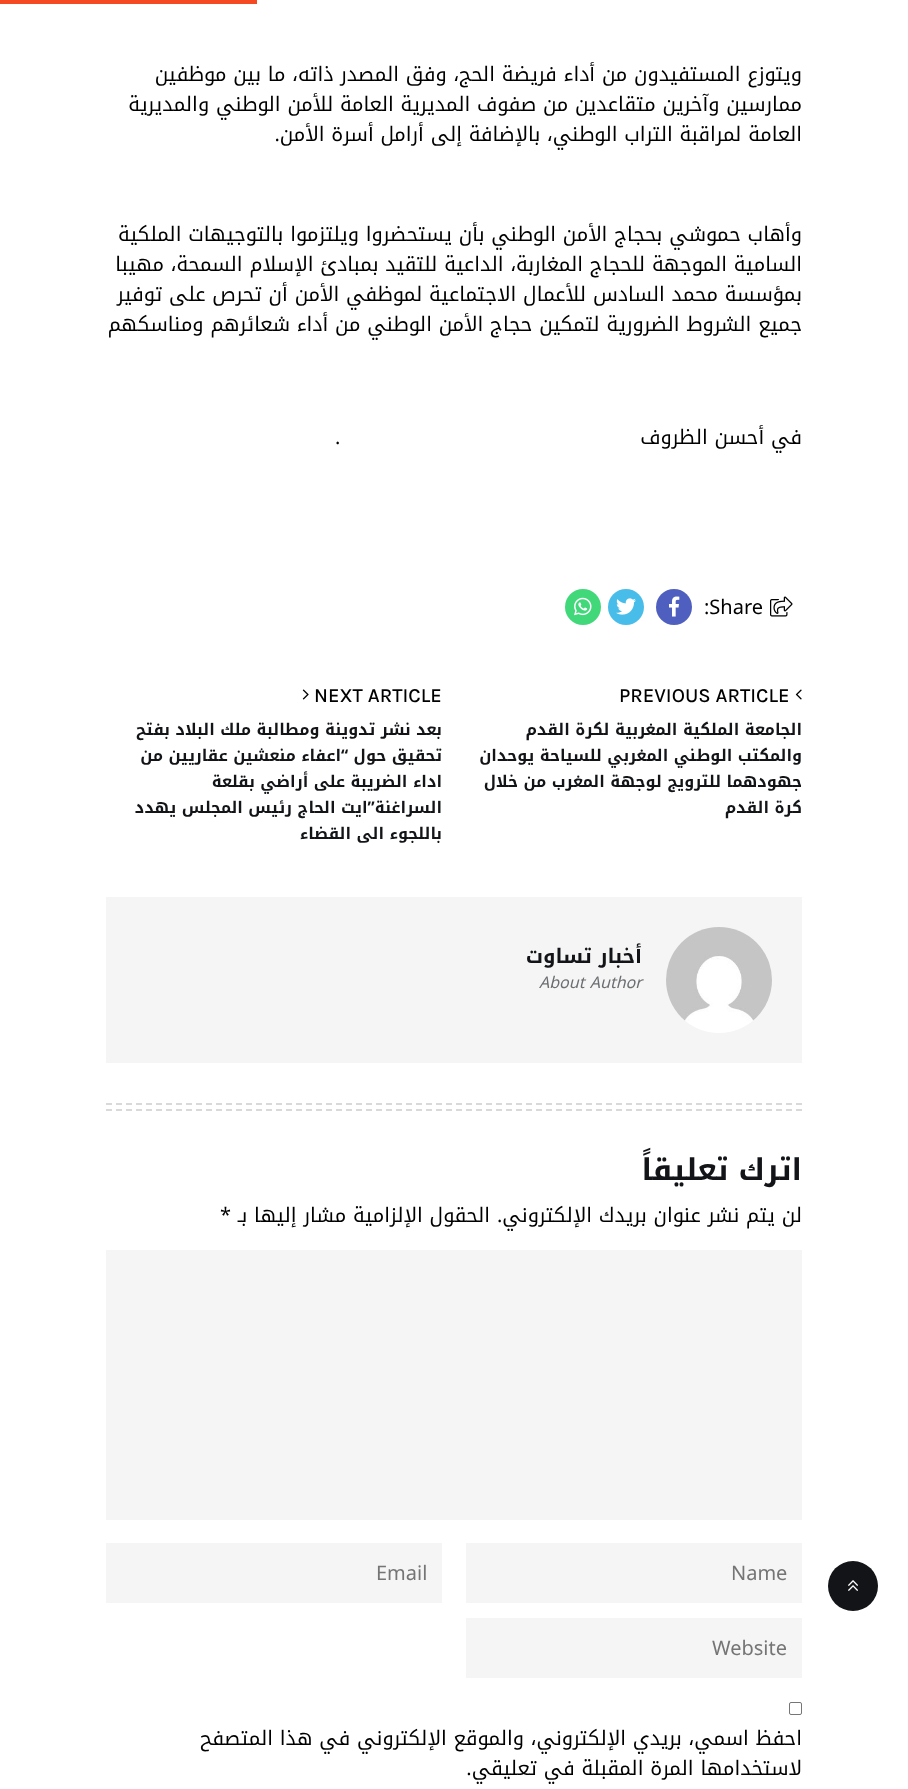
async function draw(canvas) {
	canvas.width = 908;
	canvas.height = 1789;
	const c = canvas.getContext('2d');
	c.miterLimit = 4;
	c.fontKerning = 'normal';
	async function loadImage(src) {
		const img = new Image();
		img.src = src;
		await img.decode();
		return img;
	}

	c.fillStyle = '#fff';
	c.fillRect(0, 0, 908, 1789);
	c.fillStyle = '#121418';
	c.beginPath();
	c.arc(853, 1586, 25, 0, 2 * Math.PI);
	c.fill();
	c.drawImage(await loadImage('img1.png'), 848, 1580, 10, 11);
	c.fillStyle = '#f54923';
	c.fillRect(0, 0, 257, 4);
	c.direction = 'rtl';
	c.font = '20px Noto Kufi Arabic';
	c.fillStyle = '#000';
	for (const [text, x, y] of [
		['ويتوزع المستفيدون من أداء فريضة الحج، وفق المصدر ذاته، ما بين موظفين', 802, 81],
		['ممارسين وآخرين متقاعدين من صفوف المديرية العامة للأمن الوطني والمديرية', 802, 111],
		['العامة لمراقبة التراب الوطني، بالإضافة إلى أرامل أسرة الأمن.', 802, 141],
		['وأهاب حموشي بحجاج الأمن الوطني بأن يستحضروا ويلتزموا بالتوجيهات الملكية', 802, 241],
		['السامية الموجهة للحجاج المغاربة، الداعية للتقيد بمبادئ الإسلام السمحة، مهيبا', 802, 271],
		['بمؤسسة محمد السادس للأعمال الاجتماعية لموظفي الأمن أن تحرص على توفير', 802, 301],
		['جميع الشروط الضرورية لتمكين حجاج الأمن الوطني من أداء شعائرهم ومناسكهم', 802, 331],
		['في أحسن الظروف', 802, 444],
	]) {
		c.fillText(text, x, y);
	}
	c.direction = 'ltr';
	c.fillText('.', 335, 444);
	c.drawImage(await loadImage('img2.png'), 770, 596, 23, 21);
	c.fillText(':Share', 704, 614);
	c.fillStyle = '#4f5fbf';
	c.beginPath();
	c.arc(674, 607, 18, 0, 2 * Math.PI);
	c.fill();
	c.drawImage(await loadImage('img3.png'), 669, 596, 11, 21);
	c.fillStyle = '#48bde9';
	c.beginPath();
	c.arc(626, 607, 18, 0, 2 * Math.PI);
	c.fill();
	c.drawImage(await loadImage('img4.png'), 616, 598, 20, 17);
	c.fillStyle = '#41d87a';
	c.beginPath();
	c.arc(583, 607, 18, 0, 2 * Math.PI);
	c.fill();
	c.drawImage(await loadImage('img5.png'), 574, 597, 18, 19);
	c.drawImage(await loadImage('img6.png'), 795, 689, 7, 11);
	c.font = '500 20px Karla';
	c.fillStyle = '#000';
	c.fillText('PREVIOUS ARTICLE', 619, 702);
	c.direction = 'rtl';
	c.font = 'bold 16px Noto Kufi Arabic';
	c.fillStyle = '#121418';
	for (const [text, x, y] of [
		['الجامعة الملكية المغربية لكرة القدم', 802, 735],
		['والمكتب الوطني المغربي للسياحة يوحدان', 802, 761],
		['جهودهما للترويج لوجهة المغرب من خلال', 802, 787],
		['كرة القدم', 802, 813],
	]) {
		c.fillText(text, x, y);
	}
	c.direction = 'ltr';
	c.font = '500 20px Karla';
	c.fillStyle = '#000';
	c.fillText('NEXT ARTICLE', 314, 702);
	c.drawImage(await loadImage('img7.png'), 302, 689, 7, 11);
	c.direction = 'rtl';
	c.font = 'bold 16px Noto Kufi Arabic';
	c.fillStyle = '#121418';
	for (const [text, x, y] of [
		['بعد نشر تدوينة ومطالبة ملك البلاد بفتح', 442, 735],
		['تحقيق حول “اعفاء منعشين عقاريين من', 442, 761],
		['اداء الضريبة على أراضي بقلعة', 442, 787],
		['السراغنة”ايت الحاج رئيس المجلس يهدد', 442, 813],
		['باللجوء الى القضاء', 442, 839],
	]) {
		c.fillText(text, x, y);
	}
	c.fillStyle = '#f5f5f5';
	c.fillRect(106, 897, 696, 166);
	c.drawImage(await loadImage('img8.png'), 666, 927, 106, 106);
	c.font = 'bold 20px Noto Kufi Arabic';
	c.fillStyle = '#121418';
	c.fillText('أخبار تساوت', 642, 963);
	c.direction = 'ltr';
	c.font = 'italic 16px Noto Kufi Arabic';
	c.fillStyle = '#6c6f72';
	c.fillText('About Author', 539, 988);
	c.beginPath();
	c.moveTo(106, 1104);
	c.lineTo(802, 1104);
	c.strokeStyle = '#d9d9d9';
	c.lineWidth = 2;
	c.setLineDash([6, 4]);
	c.stroke();
	c.beginPath();
	c.moveTo(106, 1110);
	c.lineTo(802, 1110);
	c.stroke();
	c.direction = 'rtl';
	c.font = 'bold 30px Noto Kufi Arabic';
	c.fillStyle = '#121418';
	c.fillText('اترك تعليقاً', 802, 1180);
	c.font = '20px Noto Kufi Arabic';
	c.fillStyle = '#000';
	c.fillText('لن يتم نشر عنوان بريدك الإلكتروني.', 802, 1222);
	c.fillText('الحقول الإلزامية مشار إليها بـ', 490, 1222);
	c.direction = 'ltr';
	c.fillText('*', 220, 1222);
	c.fillStyle = '#f5f5f5';
	c.fillRect(106, 1250, 696, 270);
	c.fillRect(466, 1543, 336, 60);
	c.fillStyle = '#757575';
	c.fillText('Name', 731, 1580);
	c.fillStyle = '#f5f5f5';
	c.fillRect(106, 1543, 336, 60);
	c.fillStyle = '#757575';
	c.fillText('Email', 376, 1580);
	c.fillStyle = '#f5f5f5';
	c.fillRect(466, 1618, 336, 60);
	c.fillStyle = '#757575';
	c.fillText('Website', 712, 1655);
	c.beginPath();
	c.roundRect(789.5, 1702.5, 12, 12, 1.5);
	c.strokeStyle = '#767676';
	c.lineWidth = 1;
	c.setLineDash([]);
	c.stroke();
	c.direction = 'rtl';
	c.fillStyle = '#000';
	c.fillText('احفظ اسمي، بريدي الإلكتروني، والموقع الإلكتروني في هذا المتصفح', 802, 1745);
	c.fillText('لاستخدامها المرة المقبلة في تعليقي.', 802, 1775);
}

draw(document.querySelector('canvas'));
